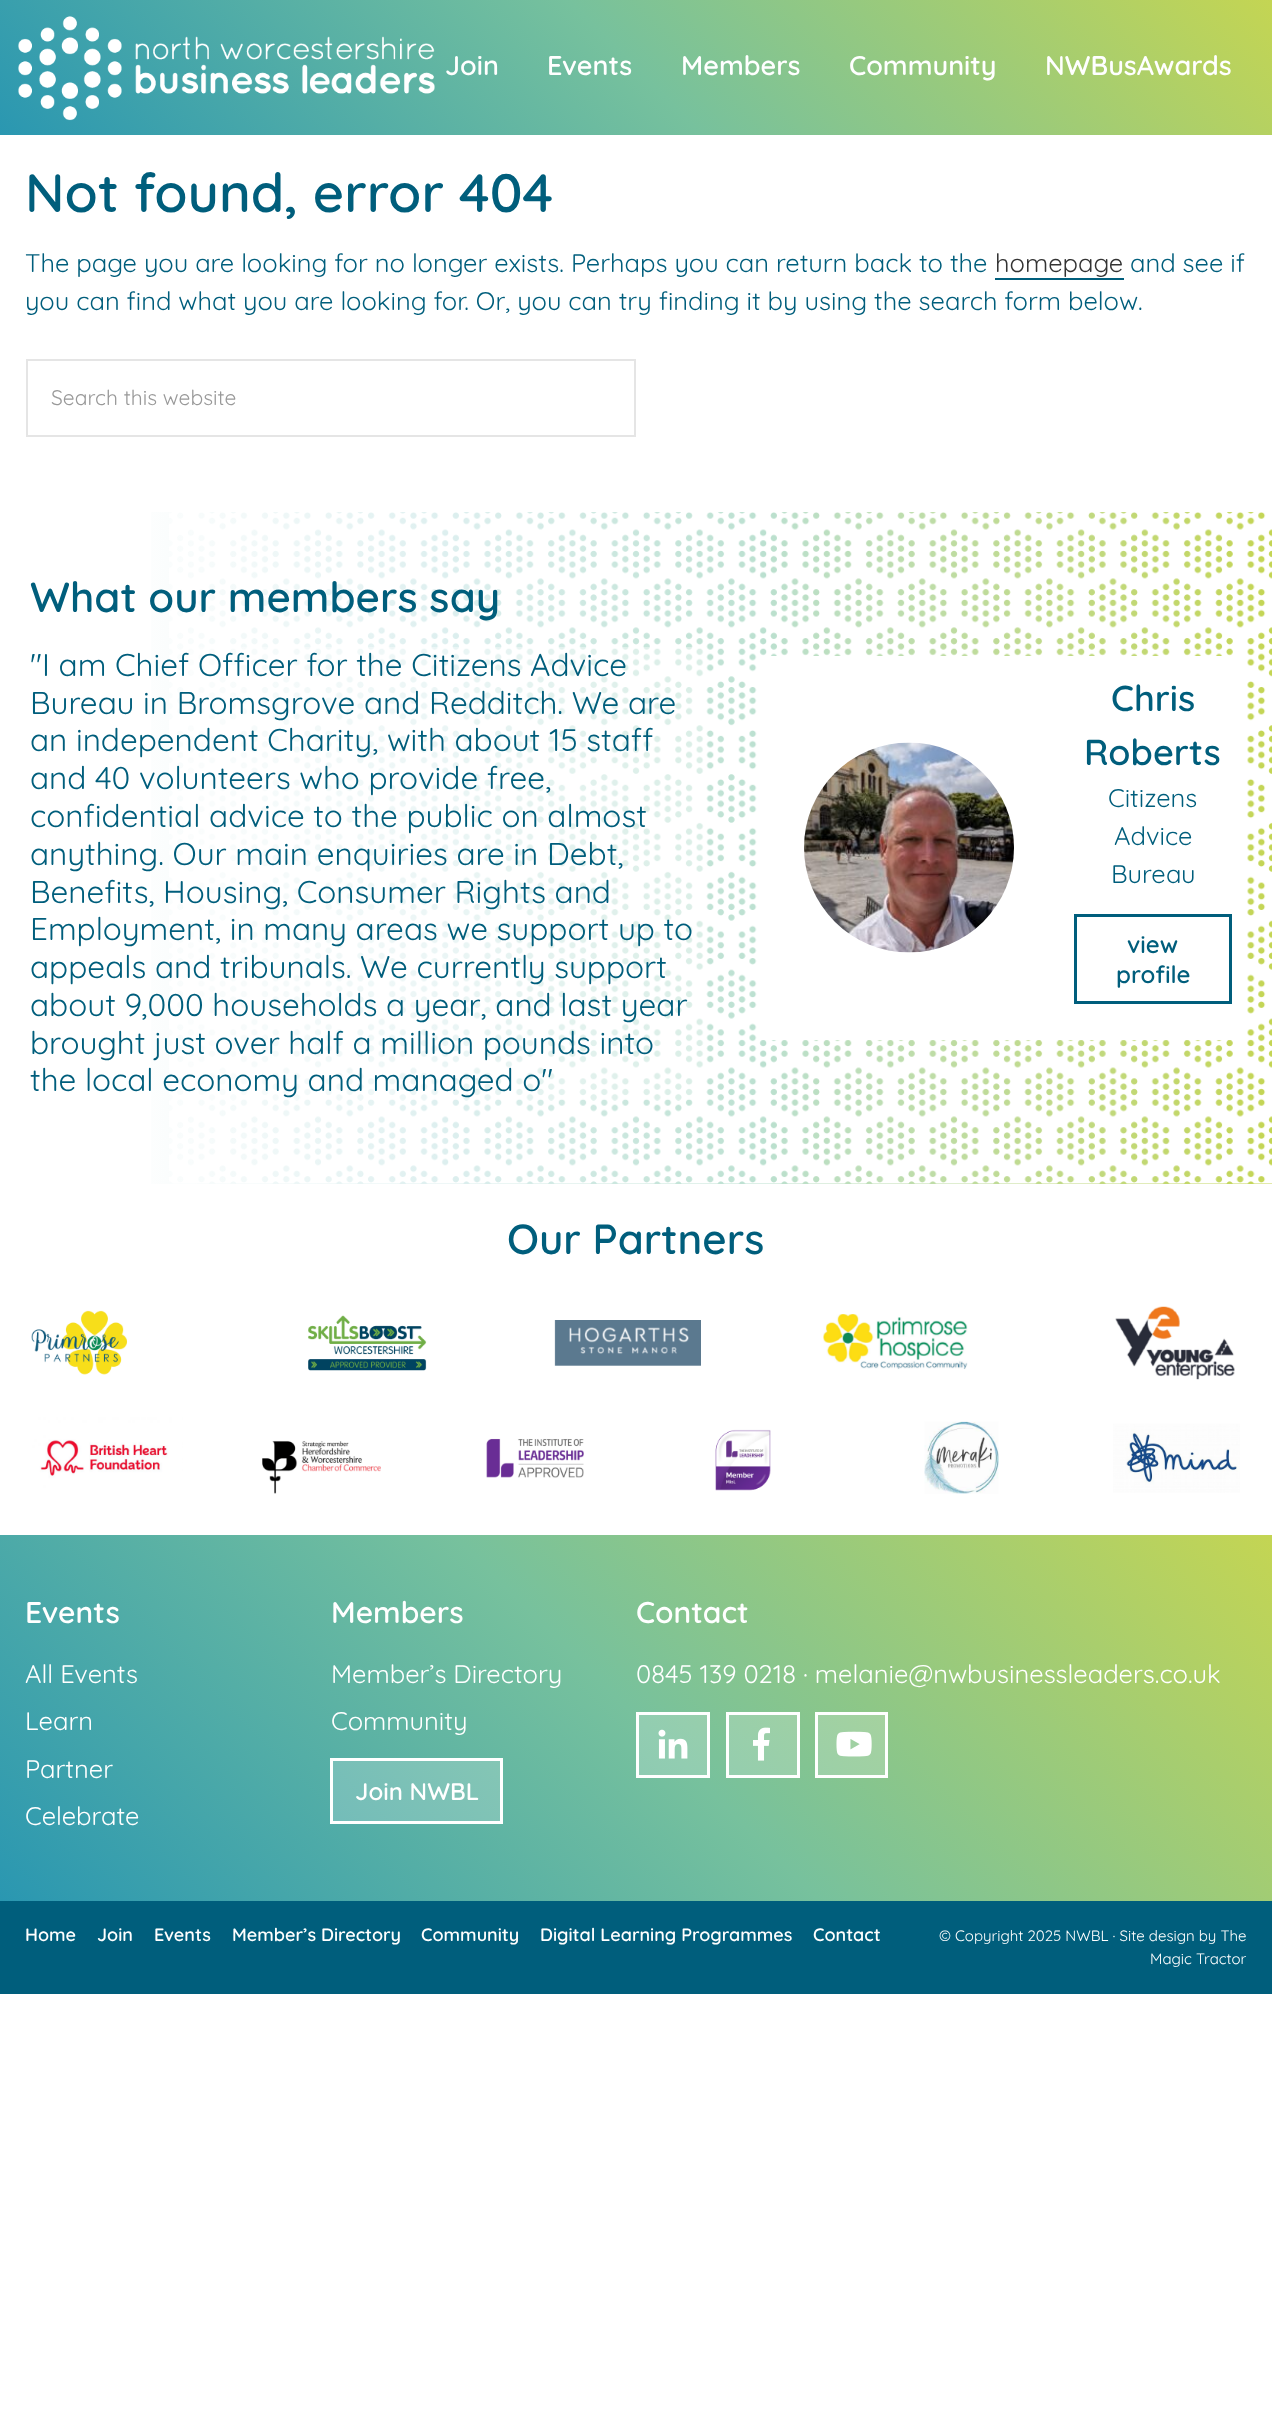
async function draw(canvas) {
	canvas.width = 1272;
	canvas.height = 2410;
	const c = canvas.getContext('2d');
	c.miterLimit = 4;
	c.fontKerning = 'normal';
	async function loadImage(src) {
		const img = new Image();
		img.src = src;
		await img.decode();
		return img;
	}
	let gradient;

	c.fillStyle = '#fff';
	c.fillRect(0, 0, 1272, 2410);
	gradient = c.createLinearGradient(284, 419, 988, -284);
	gradient.addColorStop(0, '#2a97b1');
	gradient.addColorStop(0.5, '#77c19d');
	gradient.addColorStop(1, '#c4d553');
	c.fillStyle = gradient;
	c.fillRect(0, 0, 1272, 135);
	c.drawImage(await loadImage('img1.png'), 18, 16, 417, 105);
	c.font = '600 27px Quicksand';
	c.fillStyle = '#fff';
	for (const [text, x, y] of [
		['Join', 445, 75],
		['Events', 547, 75],
		['Members', 681, 75],
		['Community', 849, 75],
		['NWBusAwards', 1045, 75],
	]) {
		c.fillText(text, x, y);
	}
	c.font = '600 54px Quicksand';
	c.fillStyle = '#005e7c';
	c.fillText('Not found, error 404', 25, 212);
	c.font = '25.5px Quicksand';
	c.fillText('The page you are looking for no longer exists. Perhaps you can return back to the', 25, 272);
	c.fillStyle = '#333';
	c.fillText('homepage', 995, 272);
	c.fillStyle = '#005e7c';
	c.fillRect(995, 278, 129, 2);
	c.fillText('and see if', 1130, 272);
	c.fillText('you can find what you are looking for. Or, you can try finding it by using the search form below.', 25, 310);
	c.strokeStyle = '#e5e5e5';
	c.lineWidth = 2;
	c.strokeRect(27, 360, 608, 76);
	c.font = '21px Quicksand';
	c.fillStyle = '#999';
	c.fillText('Search this website', 51, 405);
	gradient = c.createLinearGradient(0, 848, 1272, 848);
	gradient.addColorStop(0.1, '#fff');
	gradient.addColorStop(0.35, '#ddefef');
	gradient.addColorStop(0.6, '#bbe0d0');
	gradient.addColorStop(1, '#c4d553');
	gradient.addColorStop(1, '#cee8e5');
	gradient.addColorStop(1, '#c2d454');
	c.fillStyle = gradient;
	c.fillRect(151, 512, 1121, 672);
	c.drawImage(await loadImage('img2.png'), 169, 512, 1103, 672);
	c.font = '600 42px Quicksand';
	c.fillStyle = '#005e7c';
	c.fillText('What our members say', 30, 612);
	c.fillStyle = '#ffffff66';
	c.fillRect(188, 647, 515, 453);
	c.font = '31.5px Quicksand';
	c.fillStyle = '#005e7c';
	for (const [text, x, y] of [
		['"I am Chief Officer for the Citizens Advice', 30, 676],
		['Bureau in Bromsgrove and Redditch. We are', 30, 714],
		['an independent Charity, with about 15 staff', 30, 751],
		['and 40 volunteers who provide free,', 30, 789],
		['confidential advice to the public on almost', 30, 827],
		['anything. Our main enquiries are in Debt,', 30, 865],
		['Benefits, Housing, Consumer Rights and', 30, 903],
		['Employment, in many areas we support up to', 30, 940],
		['appeals and tribunals. We currently support', 30, 978],
		['about 9,000 households a year, and last year', 30, 1016],
		['brought just over half a million pounds into', 30, 1054],
		['the local economy and managed o"', 30, 1091],
	]) {
		c.fillText(text, x, y);
	}
	c.fillStyle = '#fff';
	c.fillRect(759, 656, 485, 384);
	c.drawImage(await loadImage('img3.png'), 804, 742, 210, 211);
	c.font = '600 36px Quicksand';
	c.fillStyle = '#005e7c';
	c.fillText('Chris', 1111, 711);
	c.fillText('Roberts', 1084, 765);
	c.font = '25.5px Quicksand';
	for (const [text, x, y] of [
		['Citizens', 1108, 807],
		['Advice', 1114, 845],
		['Bureau', 1111, 883],
	]) {
		c.fillText(text, x, y);
	}
	c.strokeStyle = '#005e7c';
	c.lineWidth = 3;
	c.strokeRect(1075.5, 915.5, 155, 87);
	c.font = '600 24px Quicksand';
	c.fillText('view', 1127, 953);
	c.fillText('profile', 1116, 983);
	c.font = '600 42px Quicksand';
	c.fillText('Our Partners', 507, 1254);
	c.drawImage(await loadImage('img4.png'), 31, 1306, 1209, 188);
	gradient = c.createLinearGradient(227, 2127, 1046, 1308);
	gradient.addColorStop(0, '#2a97b1');
	gradient.addColorStop(0.5, '#77c19d');
	gradient.addColorStop(1, '#c4d553');
	c.fillStyle = gradient;
	c.fillRect(0, 1535, 1272, 366);
	gradient = c.createLinearGradient(227, 2127, 1046, 1308);
	gradient.addColorStop(0, '#55acc1');
	gradient.addColorStop(0.5, '#92cdb1');
	gradient.addColorStop(1, '#d0dd75');
	c.fillStyle = gradient;
	c.fillRect(818, 1715, 67, 60);
	c.fillRect(729, 1715, 68, 60);
	c.fillRect(639, 1715, 68, 60);
	c.fillRect(333, 1761, 167, 60);
	c.font = '600 30px Quicksand';
	c.fillStyle = '#fff';
	c.fillText('Events', 25, 1623);
	c.font = '25.5px Quicksand';
	for (const [text, x, y] of [
		['All Events', 25, 1683],
		['Learn', 25, 1730],
		['Partner', 25, 1778],
		['Celebrate', 25, 1825],
	]) {
		c.fillText(text, x, y);
	}
	c.font = '600 30px Quicksand';
	c.fillText('Members', 331, 1623);
	c.font = '25.5px Quicksand';
	c.fillText('Member’s Directory', 331, 1683);
	c.fillText('Community', 331, 1730);
	c.strokeStyle = '#fff';
	c.strokeRect(331.5, 1759.5, 170, 63);
	c.font = '600 24px Quicksand';
	c.fillText('Join NWBL', 355, 1800);
	c.font = '600 30px Quicksand';
	c.fillText('Contact', 636, 1623);
	c.font = '25.5px Quicksand';
	c.fillText('0845 139 0218 · melanie@nwbusinessleaders.co.uk', 636, 1683);
	c.strokeRect(637.5, 1713.5, 71, 63);
	c.drawImage(await loadImage('img5.png'), 658, 1729, 30, 30);
	c.strokeRect(727.5, 1713.5, 71, 63);
	c.drawImage(await loadImage('img6.png'), 753, 1727, 17, 34);
	c.strokeRect(816.5, 1713.5, 70, 63);
	c.drawImage(await loadImage('img7.png'), 836, 1731, 36, 26);
	c.fillStyle = '#005e7c';
	c.fillRect(0, 1901, 1272, 93);
	c.font = '600 18px Quicksand';
	c.fillStyle = '#fff';
	for (const [text, x, y] of [
		['Home', 25, 1941],
		['Join', 97, 1941],
		['Events', 154, 1941],
		['Member’s Directory', 232, 1941],
		['Community', 421, 1941],
		['Digital Learning Programmes', 540, 1941],
		['Contact', 813, 1941],
	]) {
		c.fillText(text, x, y);
	}
	c.font = '15px Quicksand';
	c.fillText('© Copyright 2025 NWBL · Site design by The', 939, 1941);
	c.fillText('Magic Tractor', 1150, 1964);
}

draw(document.querySelector('canvas'));
